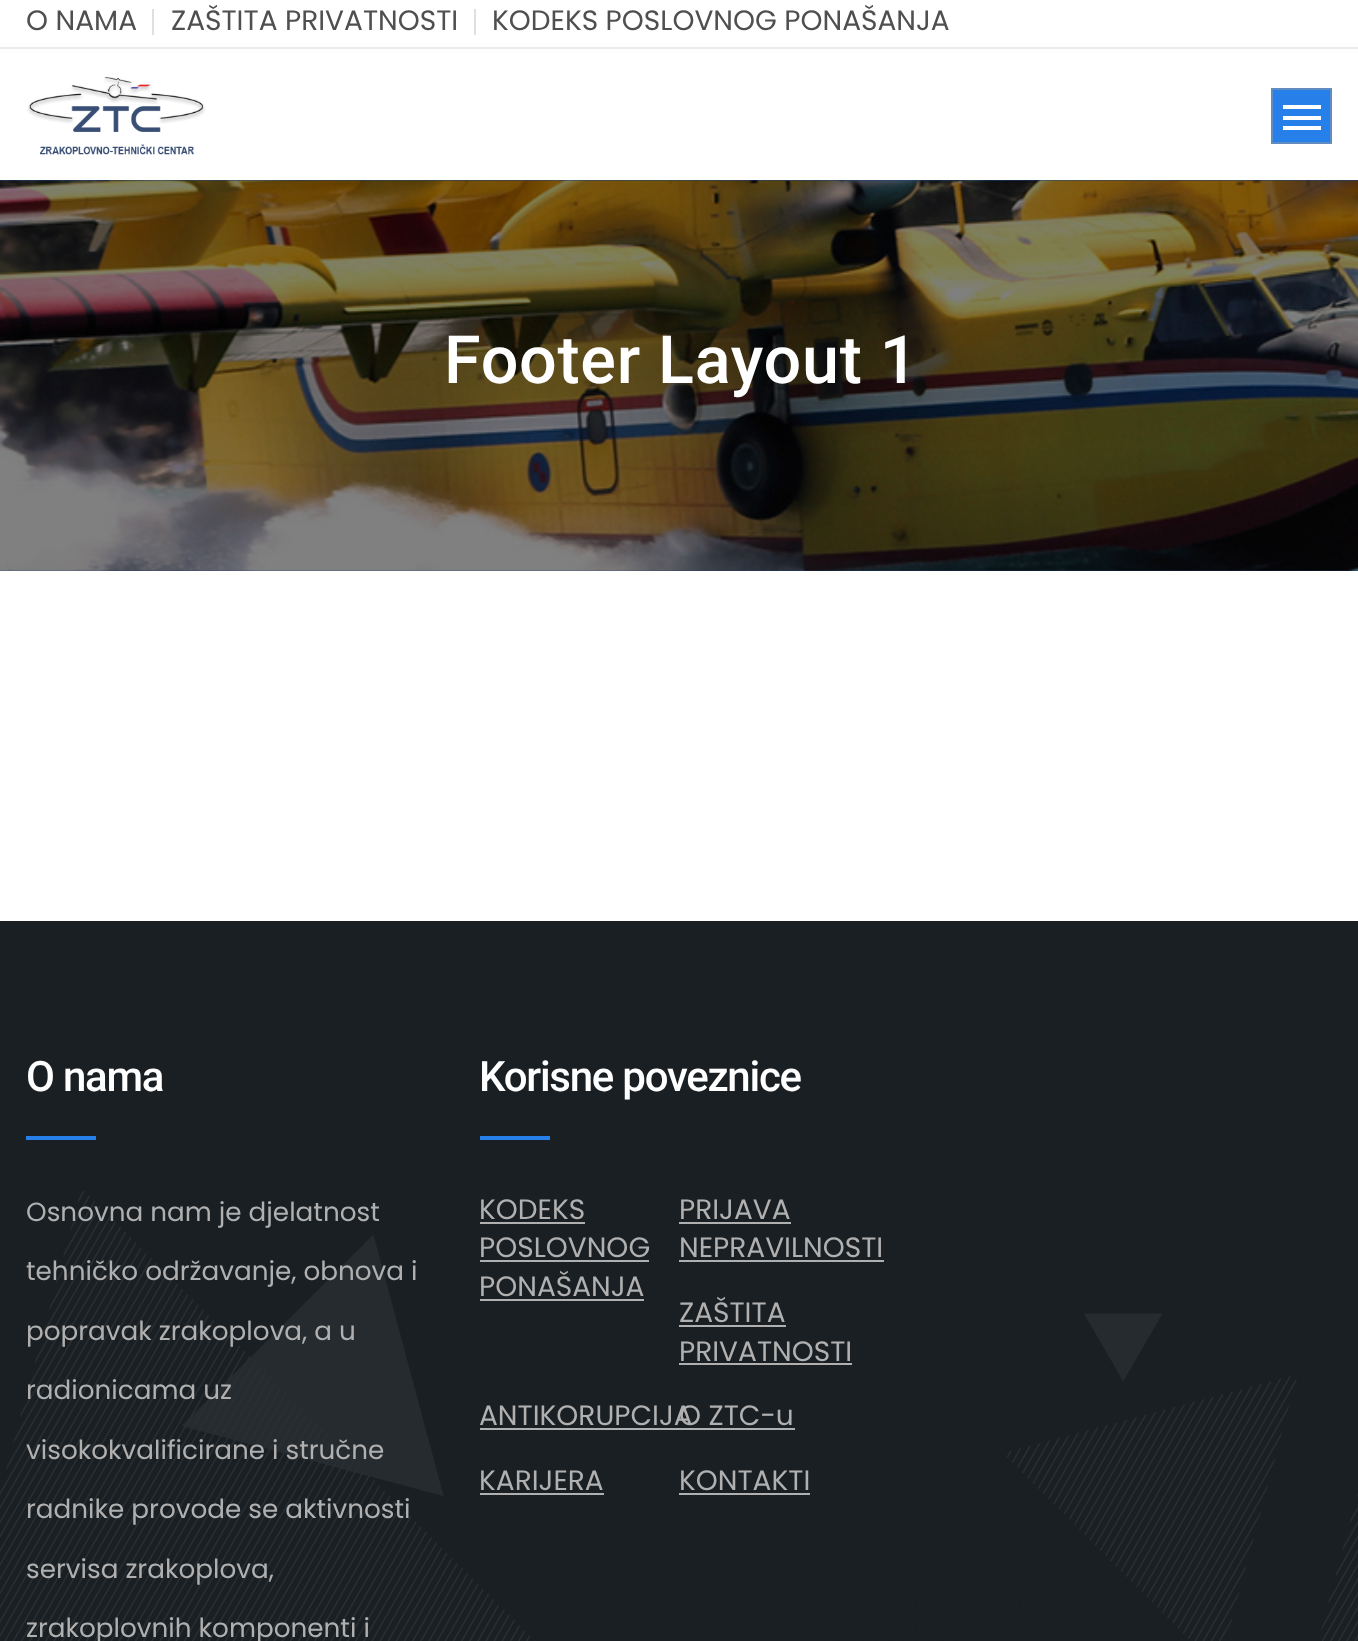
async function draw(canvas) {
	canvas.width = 1358;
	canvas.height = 1641;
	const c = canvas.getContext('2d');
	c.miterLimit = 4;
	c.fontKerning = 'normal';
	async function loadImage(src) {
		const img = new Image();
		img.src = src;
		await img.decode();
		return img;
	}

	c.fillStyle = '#fff';
	c.fillRect(0, 0, 1358, 1641);
	c.fillStyle = '#ebebeb';
	c.fillRect(0, 47, 1358, 2);
	c.font = '28px Poppins';
	c.fillStyle = '#4f4f4f';
	c.fillText('O NAMA', 26, 30);
	c.fillStyle = '#e0e0e0';
	c.fillRect(152, 9, 2, 26);
	c.fillStyle = '#4f4f4f';
	c.fillText('ZAŠTITA PRIVATNOSTI', 171, 30);
	c.fillStyle = '#e0e0e0';
	c.fillRect(474, 9, 2, 26);
	c.fillStyle = '#4f4f4f';
	c.fillText('KODEKS POSLOVNOG PONAŠANJA', 492, 30);
	c.drawImage(await loadImage('img1.png'), 27, 77, 179, 78);
	c.fillStyle = '#277fea';
	c.beginPath();
	c.rect(1272, 89, 59, 54);
	c.fill();
	c.strokeStyle = '#608cc2';
	c.lineWidth = 2;
	c.stroke();
	for (const [x, y, w, h, color] of [
		[1283, 105, 38, 4, '#fff'],
		[1283, 116, 38, 4, '#fff'],
		[1283, 126, 38, 4, '#fff'],
		[0, 180, 1358, 391, '#144075'],
	]) {
		c.fillStyle = color;
		c.fillRect(x, y, w, h);
	}
	c.drawImage(await loadImage('img2.png'), 0, 180, 1358, 391);
	c.letterSpacing = '0.7px';
	c.font = '500 66.5px Roboto';
	c.fillStyle = '#fff';
	c.fillText('Footer Layout 1', 444, 383);
	c.fillStyle = '#191f23';
	c.fillRect(0, 921, 1358, 720);
	c.drawImage(await loadImage('img3.png'), 0, 1191, 1358, 450);
	c.letterSpacing = '-1.25px';
	c.font = '500 42px Roboto';
	c.fillStyle = '#fff';
	c.fillText('O nama', 26, 1091);
	c.fillStyle = '#277fea';
	c.fillRect(26, 1136, 70, 4);
	c.letterSpacing = '0px';
	c.font = '26.25px Poppins';
	c.fillStyle = '#b0b0b0';
	for (const [text, x, y] of [
		['Osnovna nam je djelatnost', 26, 1221],
		['tehničko održavanje, obnova i', 26, 1280],
		['popravak zrakoplova, a u', 26, 1340],
		['radionicama uz', 26, 1399],
		['visokokvalificirane i stručne', 26, 1459],
		['radnike provode se aktivnosti', 26, 1518],
		['servisa zrakoplova,', 26, 1578],
		['zrakoplovnih komponenti i', 26, 1637],
	]) {
		c.fillText(text, x, y);
	}
	c.letterSpacing = '-1.25px';
	c.font = '500 42px Roboto';
	c.fillStyle = '#fff';
	c.fillText('Korisne poveznice', 479, 1091);
	c.fillStyle = '#277fea';
	c.fillRect(480, 1136, 70, 4);
	c.letterSpacing = '0px';
	c.font = '28px Poppins';
	c.fillStyle = '#b0b0b0';
	c.fillText('KODEKS', 479, 1219);
	c.fillRect(480, 1222, 105, 2);
	c.fillText('POSLOVNOG', 479, 1257);
	c.fillRect(480, 1260, 169, 2);
	c.fillText('PONAŠANJA', 479, 1296);
	c.fillRect(480, 1299, 164, 2);
	c.fillText('PRIJAVA', 679, 1219);
	c.fillRect(679, 1222, 112, 2);
	c.fillText('NEPRAVILNOSTI', 679, 1257);
	c.fillRect(679, 1260, 205, 2);
	c.fillText('ZAŠTITA', 679, 1322);
	c.fillRect(679, 1325, 107, 2);
	c.fillText('PRIVATNOSTI', 679, 1361);
	c.fillRect(679, 1363, 173, 2);
	c.fillText('ANTIKORUPCIJA', 479, 1425);
	c.fillRect(480, 1428, 315, 2);
	c.fillText('O ZTC-u', 679, 1425);
	c.fillText('KARIJERA', 479, 1490);
	c.fillRect(480, 1493, 124, 2);
	c.fillText('KONTAKTI', 679, 1490);
	c.fillRect(679, 1493, 131, 2);
}

draw(document.querySelector('canvas'));
